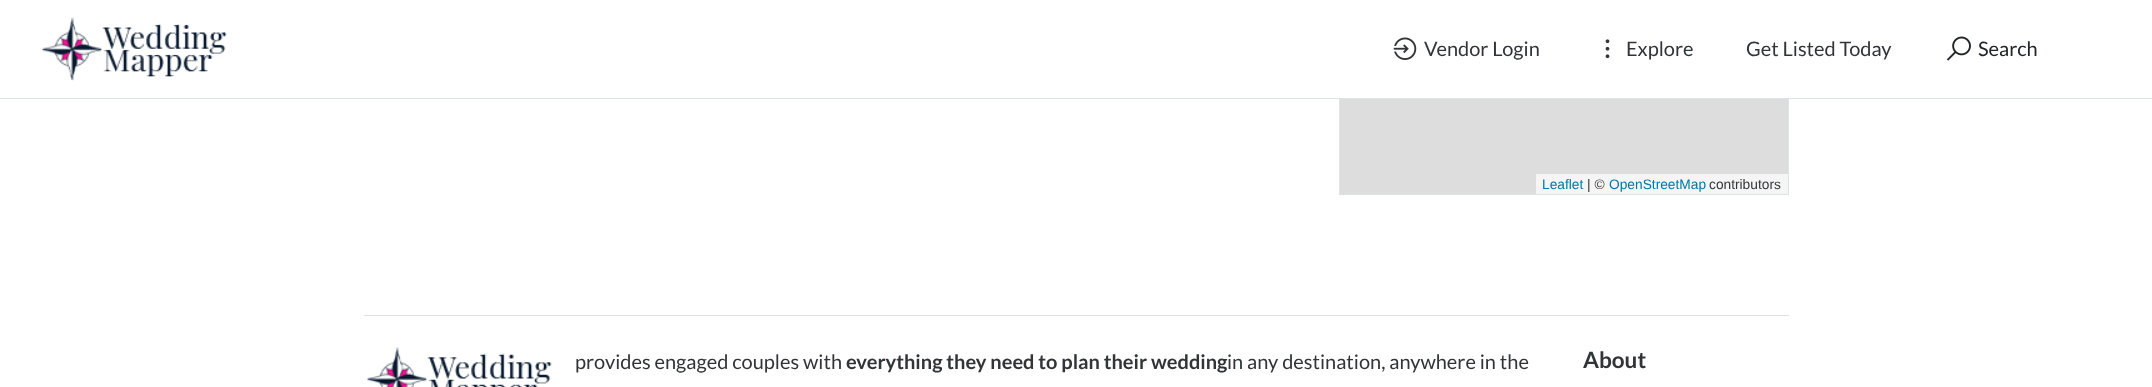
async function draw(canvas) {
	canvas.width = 2152;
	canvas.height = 387;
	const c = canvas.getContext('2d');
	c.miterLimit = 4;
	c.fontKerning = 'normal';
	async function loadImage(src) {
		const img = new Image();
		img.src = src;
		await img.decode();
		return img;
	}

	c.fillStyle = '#fff';
	c.fillRect(0, 0, 2152, 387);
	c.strokeStyle = '#dee3e5';
	c.strokeRect(1339.5, -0.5, 449, 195);
	c.fillRect(1339, 0, 450, 98);
	c.fillStyle = '#dee3e5';
	c.fillRect(0, 98, 2152, 1);
	c.drawImage(await loadImage('img1.png'), 42, 17, 185, 64);
	c.drawImage(await loadImage('img2.png'), 1393, 37, 24, 23);
	c.font = '20px Lato';
	c.fillStyle = '#323537';
	c.fillText('Vendor Login', 1424, 56);
	c.drawImage(await loadImage('img3.png'), 1605, 39, 5, 20);
	c.fillText('Explore', 1626, 56);
	c.fillText('Get Listed Today', 1746, 56);
	c.drawImage(await loadImage('img4.png'), 1946, 36, 25, 25);
	c.fillStyle = '#212529';
	c.fillText('Search', 1978, 56);
	c.fillStyle = '#ddd';
	c.fillRect(1340, 99, 448, 95);
	c.fillStyle = '#f5f5f5';
	c.fillRect(1536, 174, 252, 20);
	c.font = '13.75px Liberation Sans';
	c.fillStyle = '#0078a8';
	c.fillText('Leaflet', 1542, 189);
	c.fillStyle = '#323537';
	c.fillText('| ©', 1587, 189);
	c.fillStyle = '#0078a8';
	c.fillText('OpenStreetMap', 1609, 189);
	c.fillStyle = '#323537';
	c.fillText('contributors', 1709, 189);
	c.fillStyle = '#dee2e6';
	c.fillRect(364, 315, 1425, 1);
	c.drawImage(await loadImage('img5.png'), 367, 347, 185, 40);
	c.font = '20px Lato';
	c.fillStyle = '#323537';
	c.fillText('provides engaged couples with', 575, 369);
	c.font = 'bold 20px Lato';
	c.fillText('everything they need to plan their wedding', 846, 369);
	c.font = '20px Lato';
	c.fillText('in any destination, anywhere in the', 1227, 369);
	c.font = 'bold 22.5px Lato';
	c.fillText('About', 1583, 368);
}

draw(document.querySelector('canvas'));
